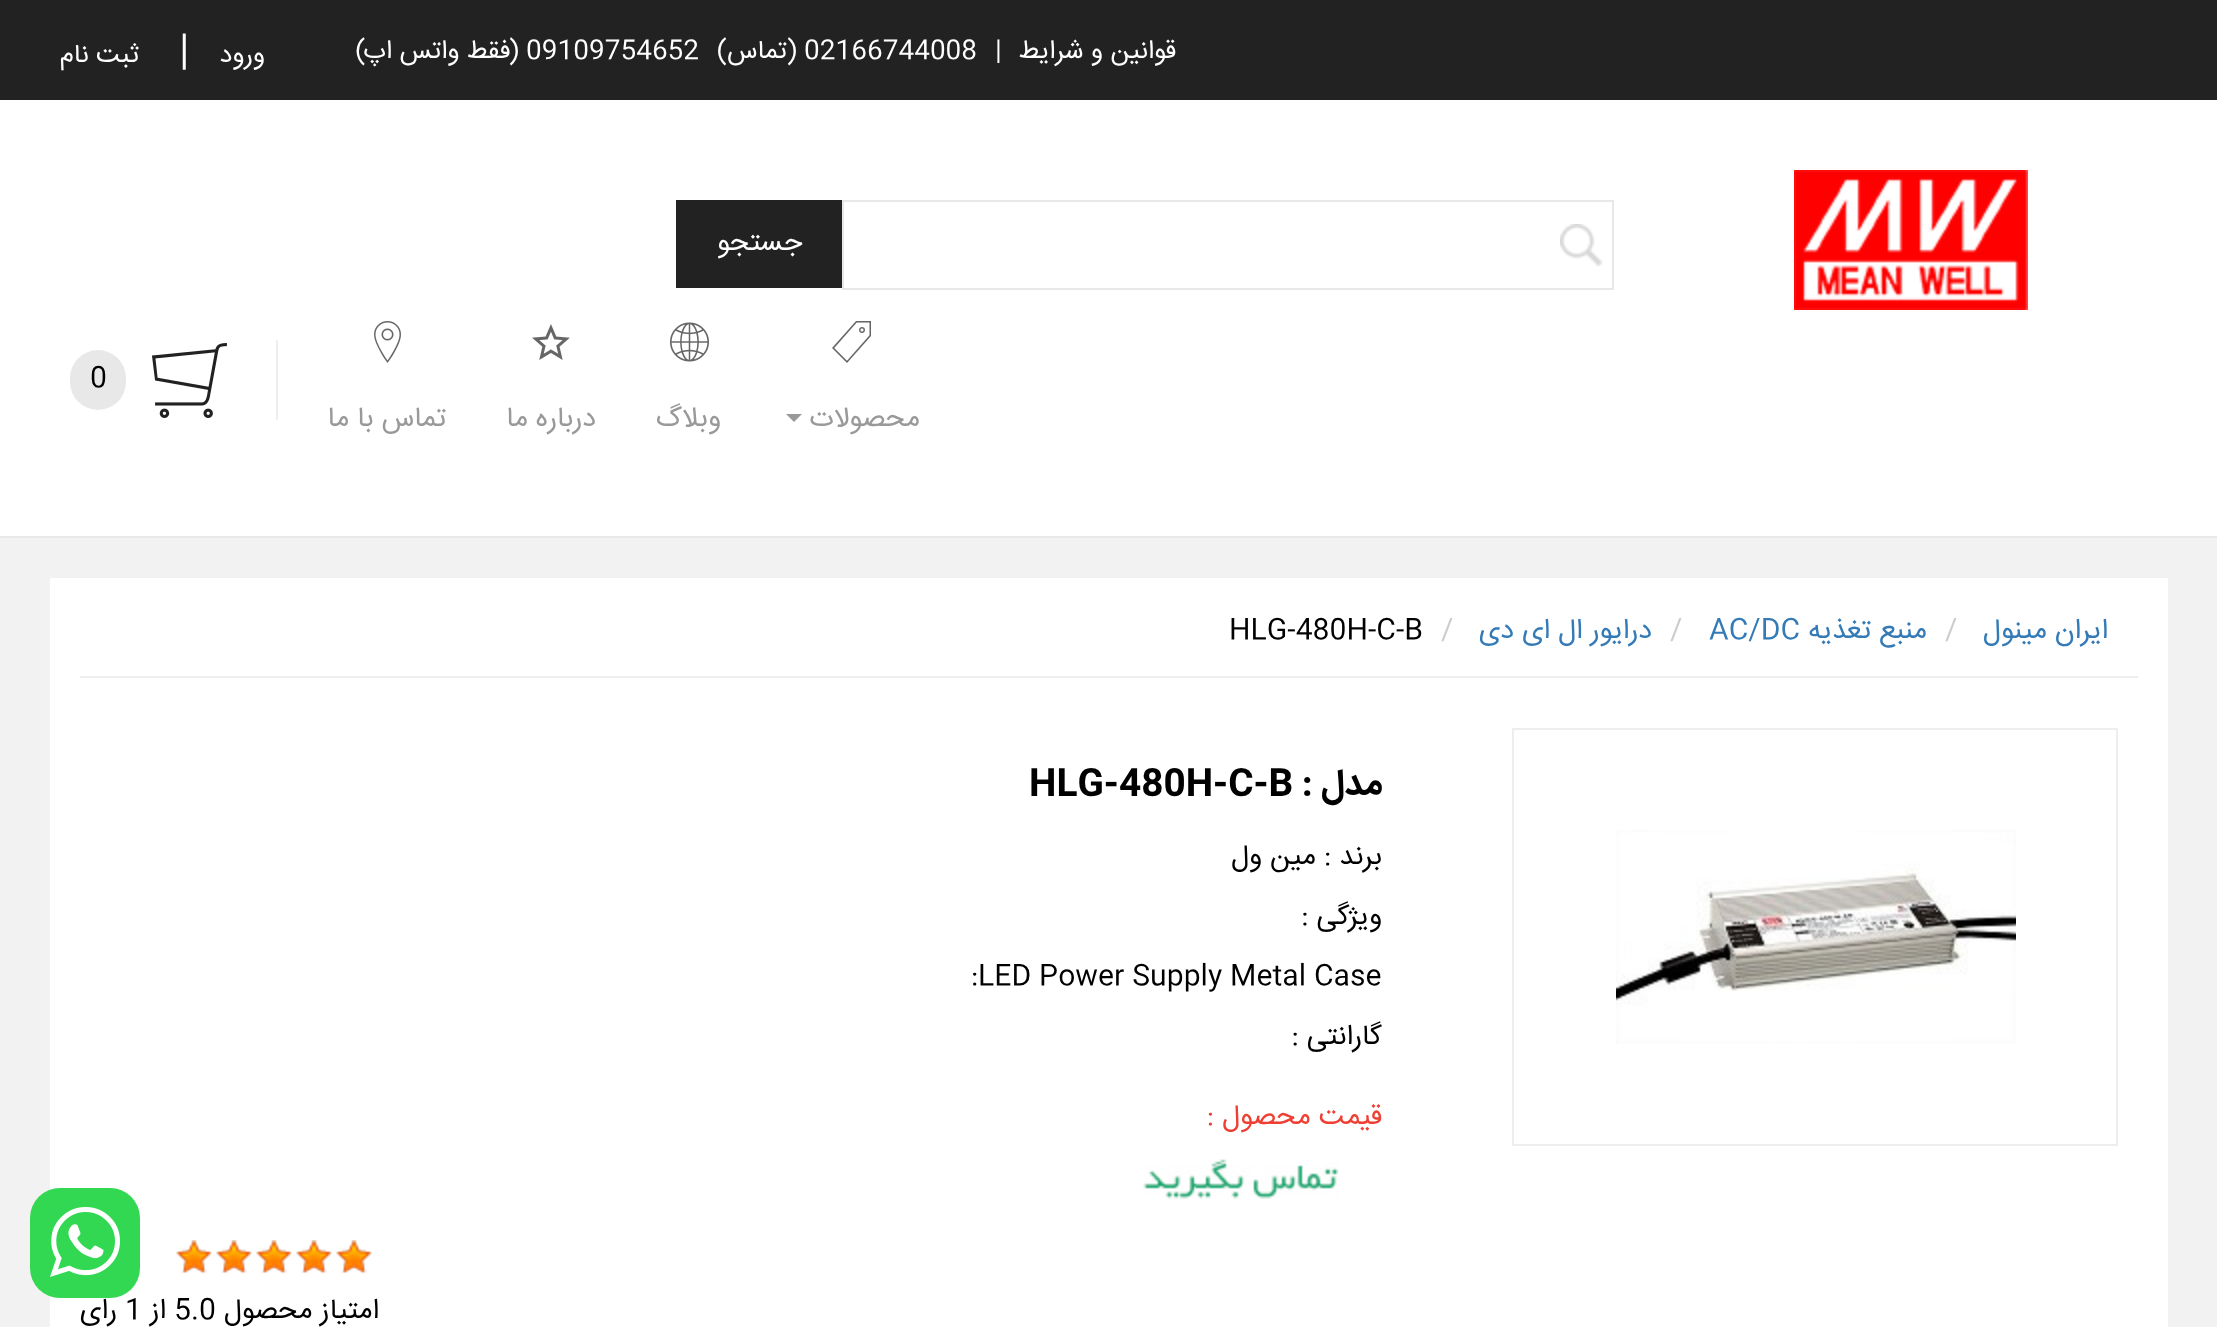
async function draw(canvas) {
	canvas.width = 2217;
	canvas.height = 1327;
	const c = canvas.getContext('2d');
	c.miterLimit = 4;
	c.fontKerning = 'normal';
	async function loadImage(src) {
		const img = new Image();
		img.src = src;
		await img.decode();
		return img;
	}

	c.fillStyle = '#f2f2f2';
	c.fillRect(0, 0, 2217, 1327);
	c.fillStyle = '#222';
	c.fillRect(0, 0, 2217, 100);
	c.direction = 'rtl';
	c.font = '26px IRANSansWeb';
	c.fillStyle = '#fff';
	c.fillText('قوانین و شرایط', 1176, 58);
	c.direction = 'ltr';
	c.fillText('|', 995, 58);
	c.fillText('02166744008', 804, 58);
	c.direction = 'rtl';
	c.fillText('(تماس)', 797, 58);
	c.direction = 'ltr';
	c.fillText('09109754652', 526, 58);
	c.direction = 'rtl';
	c.fillText('(فقط واتس اپ)', 519, 58);
	c.fillText('ورود', 265, 62);
	c.direction = 'ltr';
	c.font = '40px IRANSansWeb';
	c.fillText('|', 179, 62);
	c.direction = 'rtl';
	c.font = '26px IRANSansWeb';
	c.fillText('ثبت نام', 139, 62);
	c.fillRect(0, 100, 2217, 436);
	c.fillStyle = '#e8e8e8';
	c.fillRect(0, 536, 2217, 2);
	c.drawImage(await loadImage('img1.png'), 1794, 170, 234, 140);
	c.drawImage(await loadImage('img2.png'), 1560, 224, 43, 42);
	c.strokeStyle = '#e8e8e8';
	c.lineWidth = 2;
	c.strokeRect(843, 201, 770, 88);
	c.fillStyle = '#222';
	c.fillRect(676, 200, 166, 88);
	c.font = '28px IRANSansWeb';
	c.fillStyle = '#fff';
	c.fillText('جستجو', 802, 250);
	c.fillStyle = '#eee';
	c.fillRect(276, 340, 2, 80);
	c.drawImage(await loadImage('img3.png'), 152, 343, 75, 75);
	c.fillStyle = '#e8e8e8';
	c.beginPath();
	c.roundRect(70, 350, 56, 60, 28);
	c.fill();
	c.direction = 'ltr';
	c.fillStyle = '#000';
	c.fillText('0', 90, 386);
	c.drawImage(await loadImage('img4.png'), 832, 321, 39, 42);
	c.direction = 'rtl';
	c.fillStyle = '#999';
	c.fillText('محصولات', 920, 426);
	c.beginPath();
	c.moveTo(786, 414);
	c.lineTo(802, 414);
	c.lineTo(794, 422);
	c.closePath();
	c.fill();
	c.drawImage(await loadImage('img5.png'), 670, 322, 39, 40);
	c.fillText('وبلاگ', 721, 426);
	c.drawImage(await loadImage('img6.png'), 532, 324, 38, 36);
	c.fillText('درباره ما', 596, 426);
	c.drawImage(await loadImage('img7.png'), 374, 321, 27, 42);
	c.fillText('تماس با ما', 446, 426);
	c.fillStyle = '#fff';
	c.fillRect(50, 578, 2118, 749);
	c.fillStyle = '#337ab7';
	c.fillText('ایران مینول', 2108, 638);
	c.direction = 'ltr';
	c.fillStyle = '#ccc';
	c.fillText('/', 1945, 638);
	c.direction = 'rtl';
	c.fillStyle = '#337ab7';
	c.fillText('منبع تغذیه', 1927, 638);
	c.direction = 'ltr';
	c.fillText('AC/DC', 1709, 638);
	c.fillStyle = '#ccc';
	c.fillText('/', 1670, 638);
	c.direction = 'rtl';
	c.fillStyle = '#337ab7';
	c.fillText('درایور ال ای دی', 1652, 638);
	c.direction = 'ltr';
	c.fillStyle = '#ccc';
	c.fillText('/', 1441, 638);
	c.fillStyle = '#000';
	c.fillText('HLG-480H-C-B', 1229, 638);
	c.fillStyle = '#eee';
	c.fillRect(80, 676, 2058, 2);
	c.strokeStyle = '#eee';
	c.strokeRect(1513, 729, 604, 416);
	c.drawImage(await loadImage('img8.png'), 1616, 830, 400, 214);
	c.direction = 'rtl';
	c.font = 'bold 36px IRANSansWeb';
	c.fillStyle = '#000';
	c.fillText('مدل :', 1382, 794);
	c.direction = 'ltr';
	c.fillText('HLG-480H-C-B', 1029, 794);
	c.direction = 'rtl';
	c.font = '28px IRANSansWeb';
	for (const [text, x, y] of [
		['برند :', 1382, 864],
		['مین ول', 1316, 864],
		['ویژگی :', 1382, 924],
	]) {
		c.fillText(text, x, y);
	}
	c.direction = 'ltr';
	c.fillText('LED Power Supply Metal Case', 978, 984);
	c.fillText(':', 971, 984);
	c.direction = 'rtl';
	c.fillText('گارانتی :', 1382, 1044);
	c.fillStyle = '#ef3f34';
	c.fillText('قیمت محصول :', 1382, 1124);
	c.drawImage(await loadImage('img9.png'), 1143, 1159, 196, 40);
	c.drawImage(await loadImage('img10.png'), 336, 1240, 36, 33);
	c.drawImage(await loadImage('img11.png'), 336, 1240, 36, 34);
	c.drawImage(await loadImage('img10.png'), 296, 1240, 36, 33);
	c.drawImage(await loadImage('img11.png'), 296, 1240, 36, 34);
	c.drawImage(await loadImage('img10.png'), 256, 1240, 36, 33);
	c.drawImage(await loadImage('img11.png'), 256, 1240, 36, 34);
	c.drawImage(await loadImage('img10.png'), 216, 1240, 36, 33);
	c.drawImage(await loadImage('img11.png'), 216, 1240, 36, 34);
	c.drawImage(await loadImage('img10.png'), 176, 1240, 36, 33);
	c.drawImage(await loadImage('img11.png'), 176, 1240, 36, 34);
	c.fillStyle = '#000';
	c.fillText('امتیاز محصول', 379, 1318);
	c.direction = 'ltr';
	c.fillText('5.0', 174, 1318);
	c.direction = 'rtl';
	c.fillText('از', 166, 1318);
	c.direction = 'ltr';
	c.fillText('1', 125, 1318);
	c.direction = 'rtl';
	c.fillText('رای', 117, 1318);
	c.fillStyle = '#32d851';
	c.beginPath();
	c.roundRect(30, 1188, 110, 110, 30);
	c.fill();
	c.drawImage(await loadImage('img12.png'), 50, 1207, 70, 70);
}

draw(document.querySelector('canvas'));
